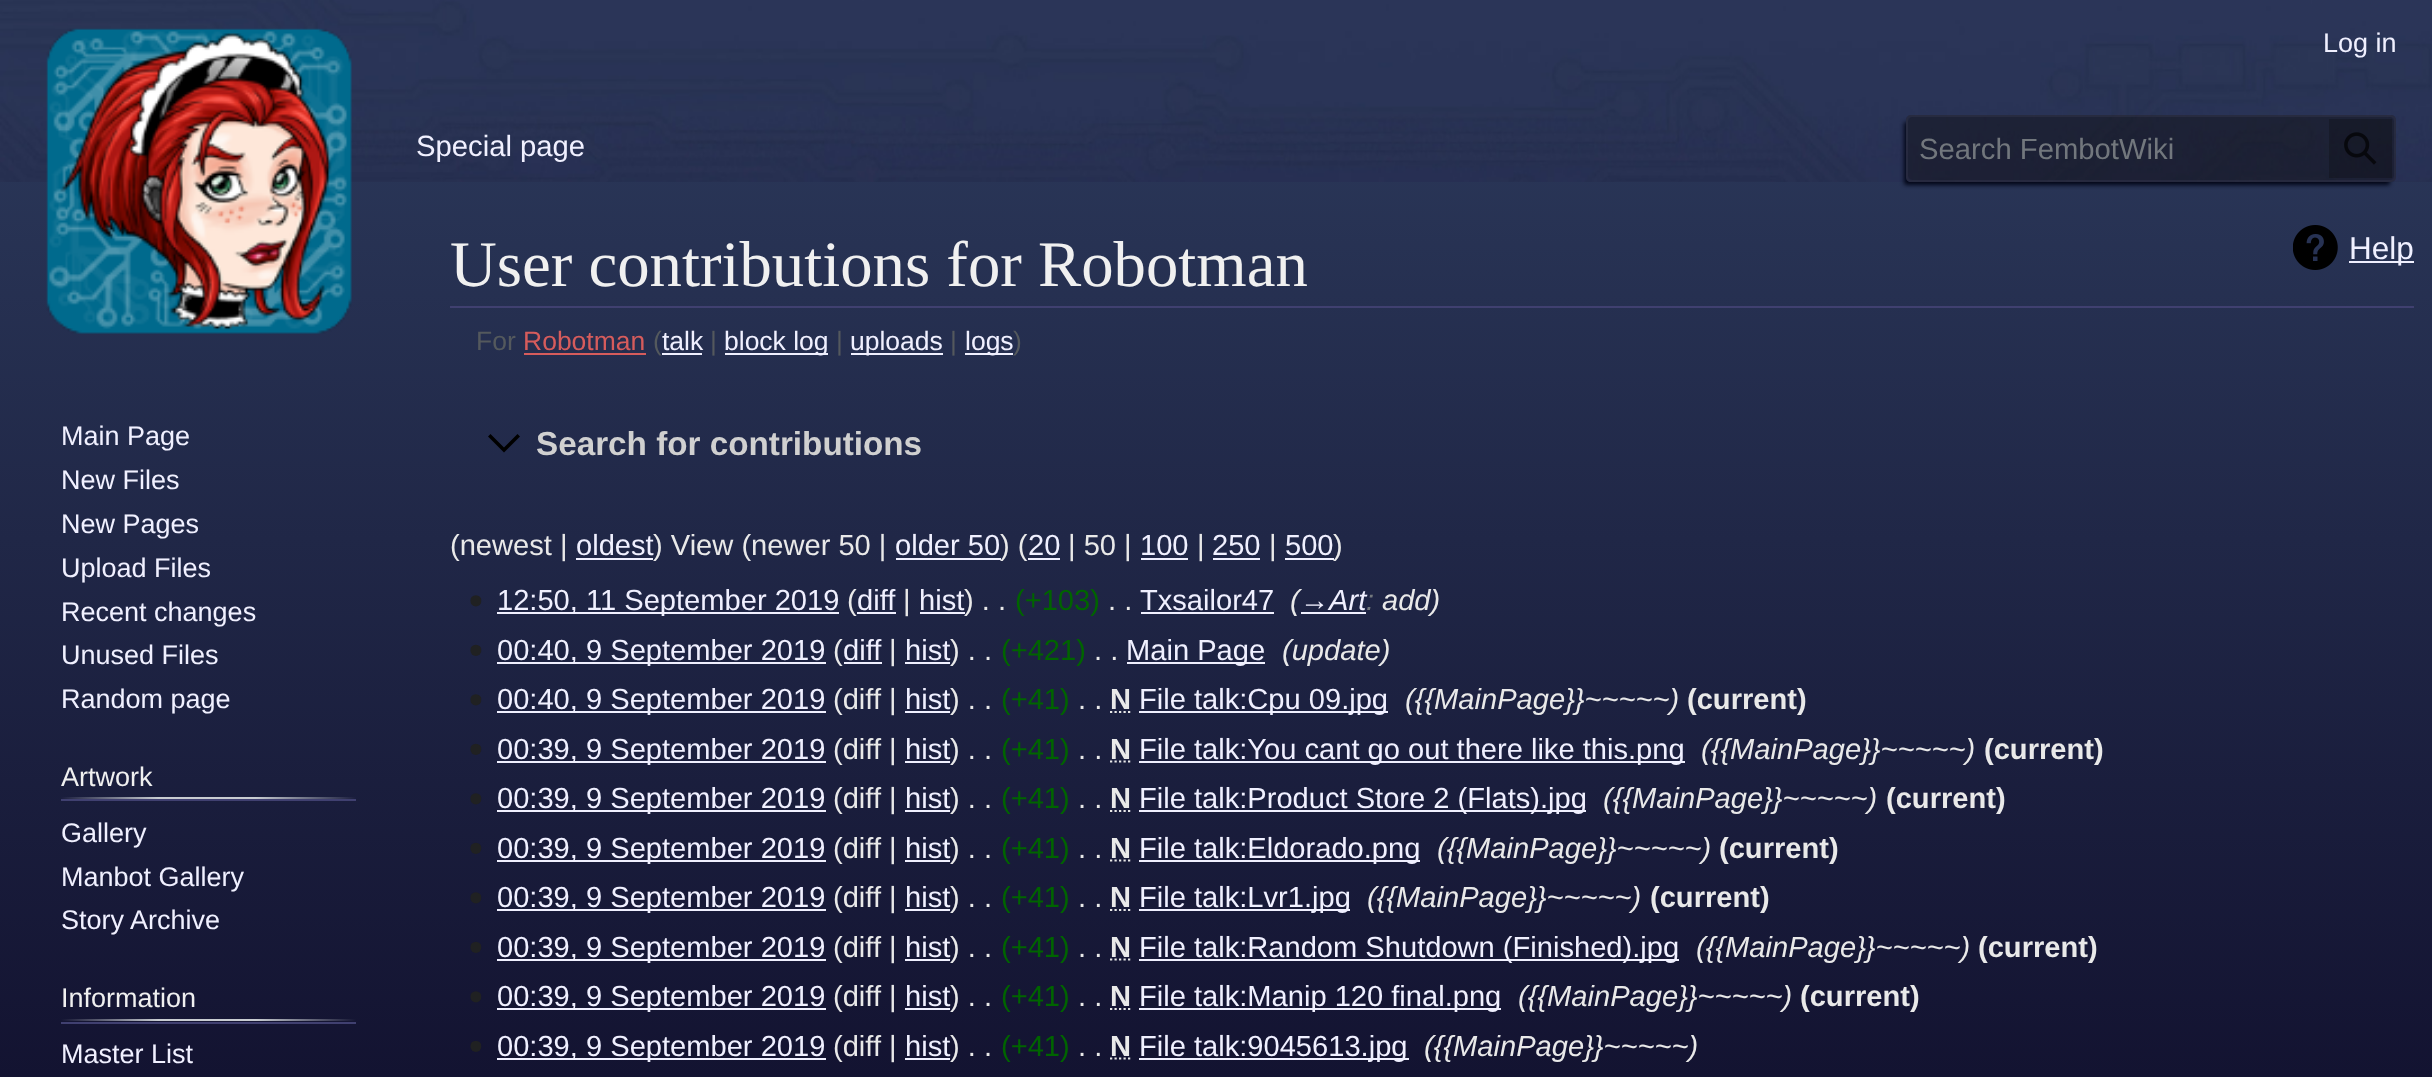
async function draw(canvas) {
	canvas.width = 2432;
	canvas.height = 1077;
	const c = canvas.getContext('2d');
	c.miterLimit = 4;
	c.fontKerning = 'normal';
	async function loadImage(src) {
		const img = new Image();
		img.src = src;
		await img.decode();
		return img;
	}
	let gradient;

	c.fillStyle = '#fff';
	c.fillRect(0, 0, 2432, 1077);
	c.drawImage(await loadImage('img1.png'), 0, 182, 2432, 895);
	c.drawImage(await loadImage('img2.png'), 0, 0, 2432, 182);
	c.font = '27px Liberation Sans';
	c.fillStyle = '#f0f0ff';
	c.fillText('Log in', 2323, 52);
	c.font = '29.25px Liberation Sans';
	c.fillText('Special page', 416, 156);
	c.save();
	c.beginPath();
	c.moveTo(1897, 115);
	c.lineTo(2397, 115);
	c.lineTo(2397, 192);
	c.lineTo(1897, 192);
	c.closePath();
	c.moveTo(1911, 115);
	c.lineTo(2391, 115);
	c.bezierCurveTo(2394, 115, 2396, 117, 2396, 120);
	c.lineTo(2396, 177);
	c.bezierCurveTo(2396, 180, 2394, 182, 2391, 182);
	c.lineTo(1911, 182);
	c.bezierCurveTo(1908, 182, 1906, 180, 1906, 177);
	c.lineTo(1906, 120);
	c.bezierCurveTo(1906, 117, 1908, 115, 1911, 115);
	c.closePath();
	c.clip('evenodd');
	c.fillStyle = '#020617';
	c.filter = 'blur(2px)';
	c.beginPath();
	c.roundRect(1904, 122, 486, 63, 2);
	c.fill();
	c.filter = 'none';
	c.restore();
	c.fillStyle = '#18182066';
	c.beginPath();
	c.roundRect(1906, 115, 490, 67, 5);
	c.fill();
	c.beginPath();
	c.roundRect(1907, 116, 488, 65, 4);
	c.strokeStyle = '#30304266';
	c.lineWidth = 2;
	c.stroke();
	c.fillStyle = '#0c0c1033';
	c.beginPath();
	c.roundRect(1908, 117, 486, 63, 5);
	c.fill();
	c.fillRect(2329, 119, 63, 59);
	c.fillStyle = '#72777d';
	c.fillText('Search FembotWiki', 1919, 159);
	c.fillStyle = '#0c0c1021';
	c.fillRect(2329, 119, 63, 59);
	c.drawImage(await loadImage('img3.png'), 2344, 132, 33, 33);
	c.drawImage(await loadImage('img4.png'), 46, 28, 306, 306);
	c.font = '27px Liberation Sans';
	c.fillStyle = '#f0f0ff';
	for (const [text, x, y] of [
		['Main Page', 61, 445],
		['New Files', 61, 489],
		['New Pages', 61, 533],
		['Upload Files', 61, 577],
		['Recent changes', 61, 621],
		['Unused Files', 61, 664],
		['Random page', 61, 708],
	]) {
		c.fillText(text, x, y);
	}
	gradient = c.createLinearGradient(61, 798, 356, 798);
	gradient.addColorStop(0, '#1a1d3d');
	gradient.addColorStop(0.33, '#c8ccd1');
	gradient.addColorStop(0.66, '#c8ccd1');
	gradient.addColorStop(1, '#1a1d3d');
	c.fillStyle = gradient;
	c.fillRect(61, 797, 295, 2);
	c.fillStyle = '#404070';
	c.fillRect(61, 799, 295, 2);
	c.fillStyle = '#f0f0f0';
	c.fillText('Artwork', 61, 786);
	c.fillStyle = '#f0f0ff';
	for (const [text, x, y] of [
		['Gallery', 61, 842],
		['Manbot Gallery', 61, 886],
		['Story Archive', 61, 929],
	]) {
		c.fillText(text, x, y);
	}
	gradient = c.createLinearGradient(61, 1020, 356, 1020);
	gradient.addColorStop(0, '#141533');
	gradient.addColorStop(0.33, '#c8ccd1');
	gradient.addColorStop(0.66, '#c8ccd1');
	gradient.addColorStop(1, '#141533');
	c.fillStyle = gradient;
	c.fillRect(61, 1019, 295, 2);
	c.fillStyle = '#404070';
	c.fillRect(61, 1022, 295, 2);
	c.fillStyle = '#f0f0f0';
	c.fillText('Information', 61, 1007);
	c.fillStyle = '#f0f0ff';
	c.fillText('Master List', 61, 1063);
	c.fillStyle = '#404070';
	c.fillRect(450, 306, 1964, 2);
	c.font = '64.75px Liberation Serif';
	c.fillStyle = '#f0f0f0';
	c.fillText('User contributions for Robotman', 450, 286);
	c.drawImage(await loadImage('img5.png'), 2293, 225, 45, 45);
	c.fillStyle = '#f0f0ff';
	c.fillRect(2349, 261, 65, 2);
	c.font = '31.5px Liberation Sans';
	c.fillText('Help', 2349, 259);
	c.font = '26.5px Liberation Sans';
	c.fillStyle = '#54595d';
	c.fillText('For', 476, 350);
	c.fillStyle = '#d65c5c';
	c.fillText('Robotman', 523, 350);
	c.fillRect(524, 353, 122, 2);
	c.fillStyle = '#54595d';
	c.fillText('(', 653, 350);
	c.fillStyle = '#f0f0ff';
	c.fillText('talk', 662, 350);
	c.fillRect(662, 353, 40, 2);
	c.fillStyle = '#54595d';
	c.fillText('|', 710, 350);
	c.fillStyle = '#f0f0ff';
	c.fillRect(725, 353, 103, 2);
	c.fillText('block log', 724, 350);
	c.fillStyle = '#54595d';
	c.fillText('|', 836, 350);
	c.fillStyle = '#f0f0ff';
	c.fillRect(851, 353, 92, 2);
	c.fillText('uploads', 850, 350);
	c.fillStyle = '#54595d';
	c.fillText('|', 950, 350);
	c.fillStyle = '#f0f0ff';
	c.fillRect(965, 353, 48, 2);
	c.fillText('logs', 965, 350);
	c.fillStyle = '#54595d';
	c.fillText(')', 1013, 350);
	c.fillStyle = '#000';
	c.beginPath();
	c.moveTo(517.5, 434);
	c.lineTo(504, 447.5);
	c.lineTo(490.5, 434);
	c.lineTo(488, 436.5);
	c.lineTo(504, 452.5);
	c.lineTo(520, 436.5);
	c.closePath();
	c.fill();
	c.font = 'bold 33.25px Liberation Sans';
	c.fillStyle = '#d0d0d0';
	c.fillText('Search for contributions', 536, 455);
	c.font = '29.1px Liberation Sans';
	c.fillStyle = '#e9e9e9';
	c.fillText('(newest |', 450, 555);
	c.fillStyle = '#f0f0ff';
	c.fillText('oldest', 576, 555);
	c.fillRect(576, 558, 77, 2);
	c.fillStyle = '#e9e9e9';
	c.fillText(') View (newer 50 |', 653, 555);
	c.fillStyle = '#f0f0ff';
	c.fillText('older 50', 895, 555);
	c.fillRect(896, 558, 105, 2);
	c.fillStyle = '#e9e9e9';
	c.fillText(') (', 1000, 555);
	c.fillStyle = '#f0f0ff';
	c.fillText('20', 1028, 555);
	c.fillRect(1028, 558, 32, 2);
	c.fillStyle = '#e9e9e9';
	c.fillText('| 50 |', 1068, 555);
	c.fillStyle = '#f0f0ff';
	c.fillText('100', 1140, 555);
	c.fillRect(1141, 558, 47, 2);
	c.fillStyle = '#e9e9e9';
	c.fillText('|', 1197, 555);
	c.fillStyle = '#f0f0ff';
	c.fillText('250', 1212, 555);
	c.fillRect(1213, 558, 47, 2);
	c.fillStyle = '#e9e9e9';
	c.fillText('|', 1269, 555);
	c.fillStyle = '#f0f0ff';
	c.fillText('500', 1285, 555);
	c.fillRect(1285, 558, 49, 2);
	c.fillStyle = '#e9e9e9';
	c.fillText(')', 1333, 555);
	c.drawImage(await loadImage('img6.png'), 470, 595, 12, 12);
	c.fillStyle = '#f0f0ff';
	c.fillRect(497, 612, 342, 2);
	c.fillText('12:50, 11 September 2019', 497, 610);
	c.fillStyle = '#e9e9e9';
	c.fillText('(', 847, 610);
	c.fillStyle = '#f0f0ff';
	c.fillText('diff', 857, 610);
	c.fillRect(857, 612, 39, 2);
	c.fillStyle = '#e9e9e9';
	c.fillText('|', 903, 610);
	c.fillStyle = '#f0f0ff';
	c.fillText('hist', 919, 610);
	c.fillRect(920, 612, 45, 2);
	c.fillStyle = '#e9e9e9';
	c.fillText(') . .', 964, 610);
	c.fillStyle = '#006400';
	c.fillText('(+103)', 1015, 610);
	c.fillStyle = '#e9e9e9';
	c.fillText('. .', 1108, 610);
	c.fillStyle = '#f0f0ff';
	c.fillText('Txsailor47', 1140, 610);
	c.fillRect(1141, 612, 133, 2);
	c.font = 'italic 29.1px Liberation Sans';
	c.fillStyle = '#e9e9e9';
	c.fillText('(', 1290, 610);
	c.fillStyle = '#f0f0ff';
	c.fillRect(1301, 612, 65, 2);
	c.fillText('→Art', 1300, 610);
	c.fillStyle = '#72777d';
	c.fillText(':', 1366, 610);
	c.fillStyle = '#e9e9e9';
	c.fillText('add)', 1382, 610);
	c.drawImage(await loadImage('img7.png'), 470, 644, 12, 12);
	c.fillStyle = '#f0f0ff';
	c.fillRect(497, 662, 329, 2);
	c.font = '29.1px Liberation Sans';
	c.fillText('00:40, 9 September 2019', 497, 660);
	c.fillStyle = '#e9e9e9';
	c.fillText('(', 833, 660);
	c.fillStyle = '#f0f0ff';
	c.fillText('diff', 843, 660);
	c.fillRect(844, 662, 38, 2);
	c.fillStyle = '#e9e9e9';
	c.fillText('|', 889, 660);
	c.fillStyle = '#f0f0ff';
	c.fillText('hist', 905, 660);
	c.fillRect(905, 662, 45, 2);
	c.fillStyle = '#e9e9e9';
	c.fillText(') . .', 950, 660);
	c.fillStyle = '#006400';
	c.fillText('(+421)', 1001, 660);
	c.fillStyle = '#e9e9e9';
	c.fillText('. .', 1094, 660);
	c.fillStyle = '#f0f0ff';
	c.fillRect(1127, 662, 138, 2);
	c.fillText('Main Page', 1126, 660);
	c.font = 'italic 29.1px Liberation Sans';
	c.fillStyle = '#e9e9e9';
	c.fillText('(update)', 1282, 660);
	c.drawImage(await loadImage('img8.png'), 470, 694, 12, 12);
	c.fillStyle = '#f0f0ff';
	c.fillRect(497, 711, 329, 2);
	c.font = '29.1px Liberation Sans';
	c.fillText('00:40, 9 September 2019', 497, 709);
	c.fillStyle = '#e9e9e9';
	c.fillText('(diff |', 833, 709);
	c.fillStyle = '#f0f0ff';
	c.fillText('hist', 905, 709);
	c.fillRect(905, 711, 45, 2);
	c.fillStyle = '#e9e9e9';
	c.fillText(') . .', 950, 709);
	c.fillStyle = '#006400';
	c.fillText('(+41)', 1001, 709);
	c.fillStyle = '#e9e9e9';
	c.fillText('. .', 1078, 709);
	c.font = 'bold 29.1px Liberation Sans';
	c.fillText('N', 1110, 709);
	c.beginPath();
	c.moveTo(1110, 712);
	c.lineTo(1131, 712);
	c.strokeStyle = '#e9e9e9';
	c.lineWidth = 2.2;
	c.setLineDash([2.25, 2.25]);
	c.stroke();
	c.fillStyle = '#f0f0ff';
	c.fillRect(1139, 711, 249, 2);
	c.font = '29.1px Liberation Sans';
	c.fillText('File talk:Cpu 09.jpg', 1139, 709);
	c.font = 'italic 29.1px Liberation Sans';
	c.fillStyle = '#e9e9e9';
	c.fillText('({{MainPage}}~~~~~)', 1405, 709);
	c.font = 'bold 29.1px Liberation Sans';
	c.fillText('(current)', 1687, 709);
	c.drawImage(await loadImage('img9.png'), 470, 743, 12, 12);
	c.fillStyle = '#f0f0ff';
	c.fillRect(497, 761, 329, 2);
	c.font = '29.1px Liberation Sans';
	c.fillText('00:39, 9 September 2019', 497, 759);
	c.fillStyle = '#e9e9e9';
	c.fillText('(diff |', 833, 759);
	c.fillStyle = '#f0f0ff';
	c.fillText('hist', 905, 759);
	c.fillRect(905, 761, 45, 2);
	c.fillStyle = '#e9e9e9';
	c.fillText(') . .', 950, 759);
	c.fillStyle = '#006400';
	c.fillText('(+41)', 1001, 759);
	c.fillStyle = '#e9e9e9';
	c.fillText('. .', 1078, 759);
	c.font = 'bold 29.1px Liberation Sans';
	c.fillText('N', 1110, 759);
	c.beginPath();
	c.moveTo(1110, 761.5);
	c.lineTo(1131, 761.5);
	c.stroke();
	c.fillStyle = '#f0f0ff';
	c.fillRect(1139, 761, 546, 2);
	c.font = '29.1px Liberation Sans';
	c.fillText('File talk:You cant go out there like this.png', 1139, 759);
	c.font = 'italic 29.1px Liberation Sans';
	c.fillStyle = '#e9e9e9';
	c.fillText('({{MainPage}}~~~~~)', 1701, 759);
	c.font = 'bold 29.1px Liberation Sans';
	c.fillText('(current)', 1984, 759);
	c.drawImage(await loadImage('img10.png'), 470, 793, 12, 12);
	c.fillStyle = '#f0f0ff';
	c.fillRect(497, 810, 329, 2);
	c.font = '29.1px Liberation Sans';
	c.fillText('00:39, 9 September 2019', 497, 808);
	c.fillStyle = '#e9e9e9';
	c.fillText('(diff |', 833, 808);
	c.fillStyle = '#f0f0ff';
	c.fillText('hist', 905, 808);
	c.fillRect(905, 810, 45, 2);
	c.fillStyle = '#e9e9e9';
	c.fillText(') . .', 950, 808);
	c.fillStyle = '#006400';
	c.fillText('(+41)', 1001, 808);
	c.fillStyle = '#e9e9e9';
	c.fillText('. .', 1078, 808);
	c.font = 'bold 29.1px Liberation Sans';
	c.fillText('N', 1110, 808);
	c.beginPath();
	c.moveTo(1110, 811);
	c.lineTo(1131, 811);
	c.stroke();
	c.fillStyle = '#f0f0ff';
	c.fillRect(1139, 810, 447, 2);
	c.font = '29.1px Liberation Sans';
	c.fillText('File talk:Product Store 2 (Flats).jpg', 1139, 808);
	c.font = 'italic 29.1px Liberation Sans';
	c.fillStyle = '#e9e9e9';
	c.fillText('({{MainPage}}~~~~~)', 1603, 808);
	c.font = 'bold 29.1px Liberation Sans';
	c.fillText('(current)', 1886, 808);
	c.drawImage(await loadImage('img11.png'), 470, 842, 12, 12);
	c.fillStyle = '#f0f0ff';
	c.fillRect(497, 860, 329, 2);
	c.font = '29.1px Liberation Sans';
	c.fillText('00:39, 9 September 2019', 497, 858);
	c.fillStyle = '#e9e9e9';
	c.fillText('(diff |', 833, 858);
	c.fillStyle = '#f0f0ff';
	c.fillText('hist', 905, 858);
	c.fillRect(905, 860, 45, 2);
	c.fillStyle = '#e9e9e9';
	c.fillText(') . .', 950, 858);
	c.fillStyle = '#006400';
	c.fillText('(+41)', 1001, 858);
	c.fillStyle = '#e9e9e9';
	c.fillText('. .', 1078, 858);
	c.font = 'bold 29.1px Liberation Sans';
	c.fillText('N', 1110, 858);
	c.beginPath();
	c.moveTo(1110, 860.5);
	c.lineTo(1131, 860.5);
	c.stroke();
	c.fillStyle = '#f0f0ff';
	c.fillRect(1139, 860, 281, 2);
	c.font = '29.1px Liberation Sans';
	c.fillText('File talk:Eldorado.png', 1139, 858);
	c.font = 'italic 29.1px Liberation Sans';
	c.fillStyle = '#e9e9e9';
	c.fillText('({{MainPage}}~~~~~)', 1437, 858);
	c.font = 'bold 29.1px Liberation Sans';
	c.fillText('(current)', 1719, 858);
	c.drawImage(await loadImage('img12.png'), 470, 892, 12, 12);
	c.fillStyle = '#f0f0ff';
	c.fillRect(497, 909, 329, 2);
	c.font = '29.1px Liberation Sans';
	c.fillText('00:39, 9 September 2019', 497, 907);
	c.fillStyle = '#e9e9e9';
	c.fillText('(diff |', 833, 907);
	c.fillStyle = '#f0f0ff';
	c.fillText('hist', 905, 907);
	c.fillRect(905, 909, 45, 2);
	c.fillStyle = '#e9e9e9';
	c.fillText(') . .', 950, 907);
	c.fillStyle = '#006400';
	c.fillText('(+41)', 1001, 907);
	c.fillStyle = '#e9e9e9';
	c.fillText('. .', 1078, 907);
	c.font = 'bold 29.1px Liberation Sans';
	c.fillText('N', 1110, 907);
	c.beginPath();
	c.moveTo(1110, 910);
	c.lineTo(1131, 910);
	c.stroke();
	c.fillStyle = '#f0f0ff';
	c.fillRect(1139, 909, 211, 2);
	c.font = '29.1px Liberation Sans';
	c.fillText('File talk:Lvr1.jpg', 1139, 907);
	c.font = 'italic 29.1px Liberation Sans';
	c.fillStyle = '#e9e9e9';
	c.fillText('({{MainPage}}~~~~~)', 1367, 907);
	c.font = 'bold 29.1px Liberation Sans';
	c.fillText('(current)', 1650, 907);
	c.drawImage(await loadImage('img13.png'), 470, 941, 12, 12);
	c.fillStyle = '#f0f0ff';
	c.fillRect(497, 959, 329, 2);
	c.font = '29.1px Liberation Sans';
	c.fillText('00:39, 9 September 2019', 497, 957);
	c.fillStyle = '#e9e9e9';
	c.fillText('(diff |', 833, 957);
	c.fillStyle = '#f0f0ff';
	c.fillText('hist', 905, 957);
	c.fillRect(905, 959, 45, 2);
	c.fillStyle = '#e9e9e9';
	c.fillText(') . .', 950, 957);
	c.fillStyle = '#006400';
	c.fillText('(+41)', 1001, 957);
	c.fillStyle = '#e9e9e9';
	c.fillText('. .', 1078, 957);
	c.font = 'bold 29.1px Liberation Sans';
	c.fillText('N', 1110, 957);
	c.beginPath();
	c.moveTo(1110, 959.5);
	c.lineTo(1131, 959.5);
	c.stroke();
	c.fillStyle = '#f0f0ff';
	c.fillRect(1139, 959, 540, 2);
	c.font = '29.1px Liberation Sans';
	c.fillText('File talk:Random Shutdown (Finished).jpg', 1139, 957);
	c.font = 'italic 29.1px Liberation Sans';
	c.fillStyle = '#e9e9e9';
	c.fillText('({{MainPage}}~~~~~)', 1696, 957);
	c.font = 'bold 29.1px Liberation Sans';
	c.fillText('(current)', 1978, 957);
	c.drawImage(await loadImage('img14.png'), 470, 991, 12, 12);
	c.fillStyle = '#f0f0ff';
	c.fillRect(497, 1008, 329, 2);
	c.font = '29.1px Liberation Sans';
	c.fillText('00:39, 9 September 2019', 497, 1006);
	c.fillStyle = '#e9e9e9';
	c.fillText('(diff |', 833, 1006);
	c.fillStyle = '#f0f0ff';
	c.fillText('hist', 905, 1006);
	c.fillRect(905, 1008, 45, 2);
	c.fillStyle = '#e9e9e9';
	c.fillText(') . .', 950, 1006);
	c.fillStyle = '#006400';
	c.fillText('(+41)', 1001, 1006);
	c.fillStyle = '#e9e9e9';
	c.fillText('. .', 1078, 1006);
	c.font = 'bold 29.1px Liberation Sans';
	c.fillText('N', 1110, 1006);
	c.beginPath();
	c.moveTo(1110, 1009);
	c.lineTo(1131, 1009);
	c.stroke();
	c.fillStyle = '#f0f0ff';
	c.fillRect(1139, 1008, 362, 2);
	c.font = '29.1px Liberation Sans';
	c.fillText('File talk:Manip 120 final.png', 1139, 1006);
	c.font = 'italic 29.1px Liberation Sans';
	c.fillStyle = '#e9e9e9';
	c.fillText('({{MainPage}}~~~~~)', 1518, 1006);
	c.font = 'bold 29.1px Liberation Sans';
	c.fillText('(current)', 1800, 1006);
	c.drawImage(await loadImage('img15.png'), 470, 1041, 12, 11);
	c.fillStyle = '#f0f0ff';
	c.fillRect(497, 1058, 329, 2);
	c.font = '29.1px Liberation Sans';
	c.fillText('00:39, 9 September 2019', 497, 1056);
	c.fillStyle = '#e9e9e9';
	c.fillText('(diff |', 833, 1056);
	c.fillStyle = '#f0f0ff';
	c.fillText('hist', 905, 1056);
	c.fillRect(905, 1058, 45, 2);
	c.fillStyle = '#e9e9e9';
	c.fillText(') . .', 950, 1056);
	c.fillStyle = '#006400';
	c.fillText('(+41)', 1001, 1056);
	c.fillStyle = '#e9e9e9';
	c.fillText('. .', 1078, 1056);
	c.font = 'bold 29.1px Liberation Sans';
	c.fillText('N', 1110, 1056);
	c.beginPath();
	c.moveTo(1110, 1058.5);
	c.lineTo(1131, 1058.5);
	c.stroke();
	c.fillStyle = '#f0f0ff';
	c.fillRect(1139, 1058, 270, 2);
	c.font = '29.1px Liberation Sans';
	c.fillText('File talk:9045613.jpg', 1139, 1056);
	c.font = 'italic 29.1px Liberation Sans';
	c.fillStyle = '#e9e9e9';
	c.fillText('({{MainPage}}~~~~~)', 1424, 1056);
}

draw(document.querySelector('canvas'));
